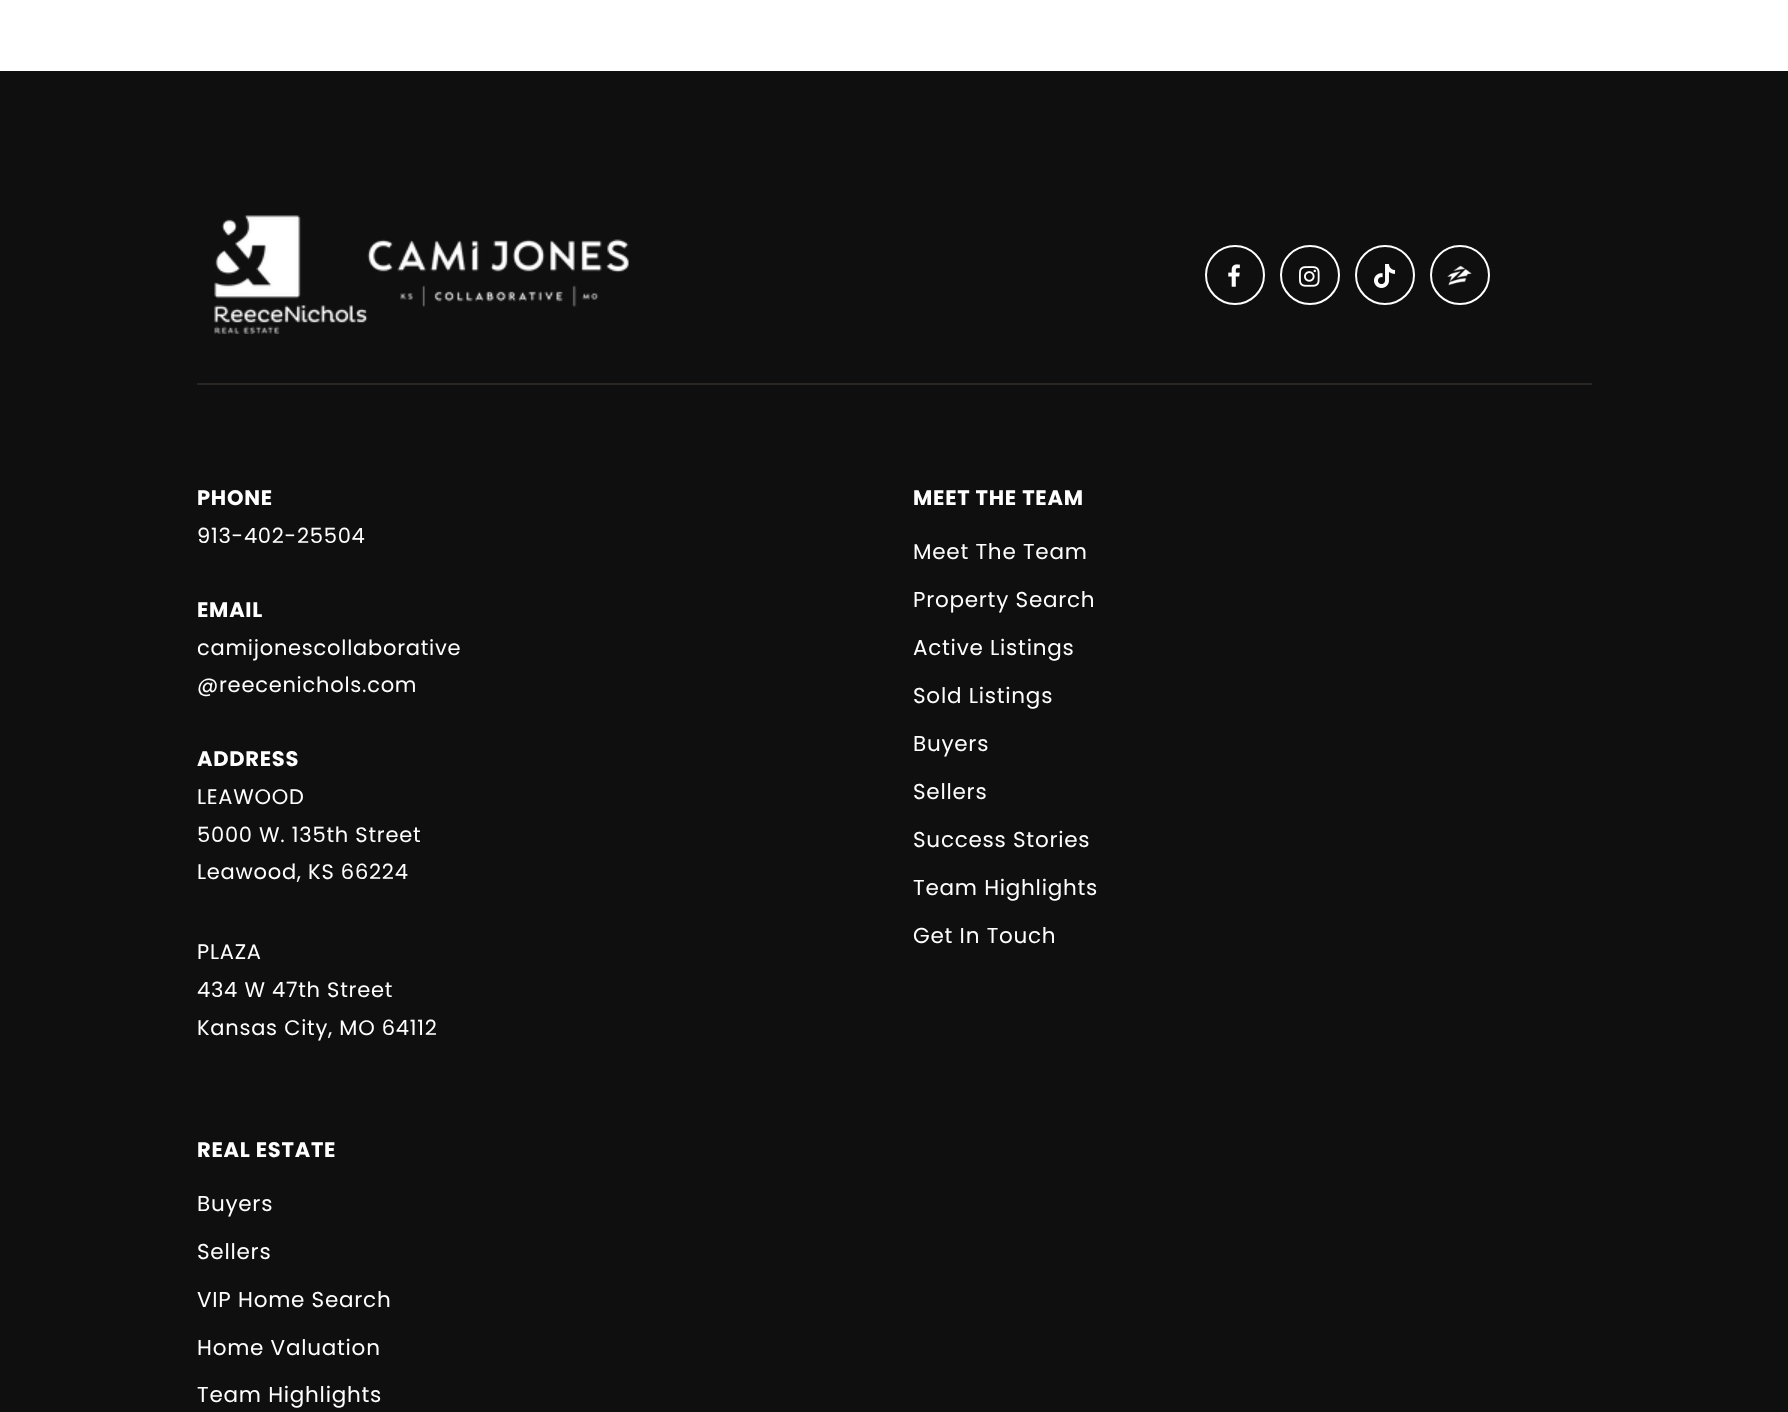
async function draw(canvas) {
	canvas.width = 1788;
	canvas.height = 1412;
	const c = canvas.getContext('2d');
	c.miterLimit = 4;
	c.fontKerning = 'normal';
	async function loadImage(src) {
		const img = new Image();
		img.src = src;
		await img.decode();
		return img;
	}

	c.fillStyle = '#fff';
	c.fillRect(0, 0, 1788, 1412);
	c.fillStyle = '#0f0f0f';
	c.fillRect(0, 71, 1788, 1341);
	c.fillStyle = '#292522';
	c.fillRect(197, 383, 1395, 2);
	c.drawImage(await loadImage('img1.png'), 214, 215, 154, 119);
	c.drawImage(await loadImage('img2.png'), 367, 239, 262, 68);
	c.beginPath();
	c.arc(1235, 275, 29, 0, 2 * Math.PI);
	c.strokeStyle = '#fff';
	c.lineWidth = 2;
	c.stroke();
	c.drawImage(await loadImage('img3.png'), 1228, 264, 12, 23);
	c.beginPath();
	c.arc(1310, 275, 29, 0, 2 * Math.PI);
	c.stroke();
	c.drawImage(await loadImage('img4.png'), 1299, 266, 21, 21);
	c.beginPath();
	c.arc(1385, 275, 29, 0, 2 * Math.PI);
	c.stroke();
	c.drawImage(await loadImage('img5.png'), 1374, 264, 22, 24);
	c.beginPath();
	c.arc(1460, 275, 29, 0, 2 * Math.PI);
	c.stroke();
	c.drawImage(await loadImage('img6.png'), 1447, 265, 25, 21);
	c.letterSpacing = '0.75px';
	c.font = 'bold 21px Poppins';
	c.fillStyle = '#fff';
	c.fillText('PHONE', 197, 505);
	c.font = '21px Poppins';
	c.fillText('913-402-25504', 197, 543);
	c.font = 'bold 21px Poppins';
	c.fillText('EMAIL', 197, 617);
	c.font = '21px Poppins';
	c.fillText('camijonescollaborative', 197, 655);
	c.fillText('@reecenichols.com', 197, 692);
	c.font = 'bold 21px Poppins';
	c.fillText('ADDRESS', 197, 766);
	c.font = '21px Poppins';
	for (const [text, x, y] of [
		['LEAWOOD', 197, 804],
		['5000 W. 135th Street', 197, 842],
		['Leawood, KS 66224', 197, 879],
		['PLAZA', 197, 959],
		['434 W 47th Street', 197, 997],
		['Kansas City, MO 64112', 197, 1035],
	]) {
		c.fillText(text, x, y);
	}
	c.font = 'bold 21px Poppins';
	c.fillText('MEET THE TEAM', 913, 505);
	c.font = '21.5px Poppins';
	for (const [text, x, y] of [
		['Meet The Team', 913, 559],
		['Property Search', 913, 607],
		['Active Listings', 913, 655],
		['Sold Listings', 913, 703],
		['Buyers', 913, 751],
		['Sellers', 913, 799],
		['Success Stories', 913, 847],
		['Team Highlights', 913, 895],
		['Get In Touch', 913, 943],
	]) {
		c.fillText(text, x, y);
	}
	c.font = 'bold 21px Poppins';
	c.fillText('REAL ESTATE', 197, 1157);
	c.font = '21.5px Poppins';
	for (const [text, x, y] of [
		['Buyers', 197, 1211],
		['Sellers', 197, 1259],
		['VIP Home Search', 197, 1307],
		['Home Valuation', 197, 1355],
		['Team Highlights', 197, 1402],
	]) {
		c.fillText(text, x, y);
	}
}

draw(document.querySelector('canvas'));
